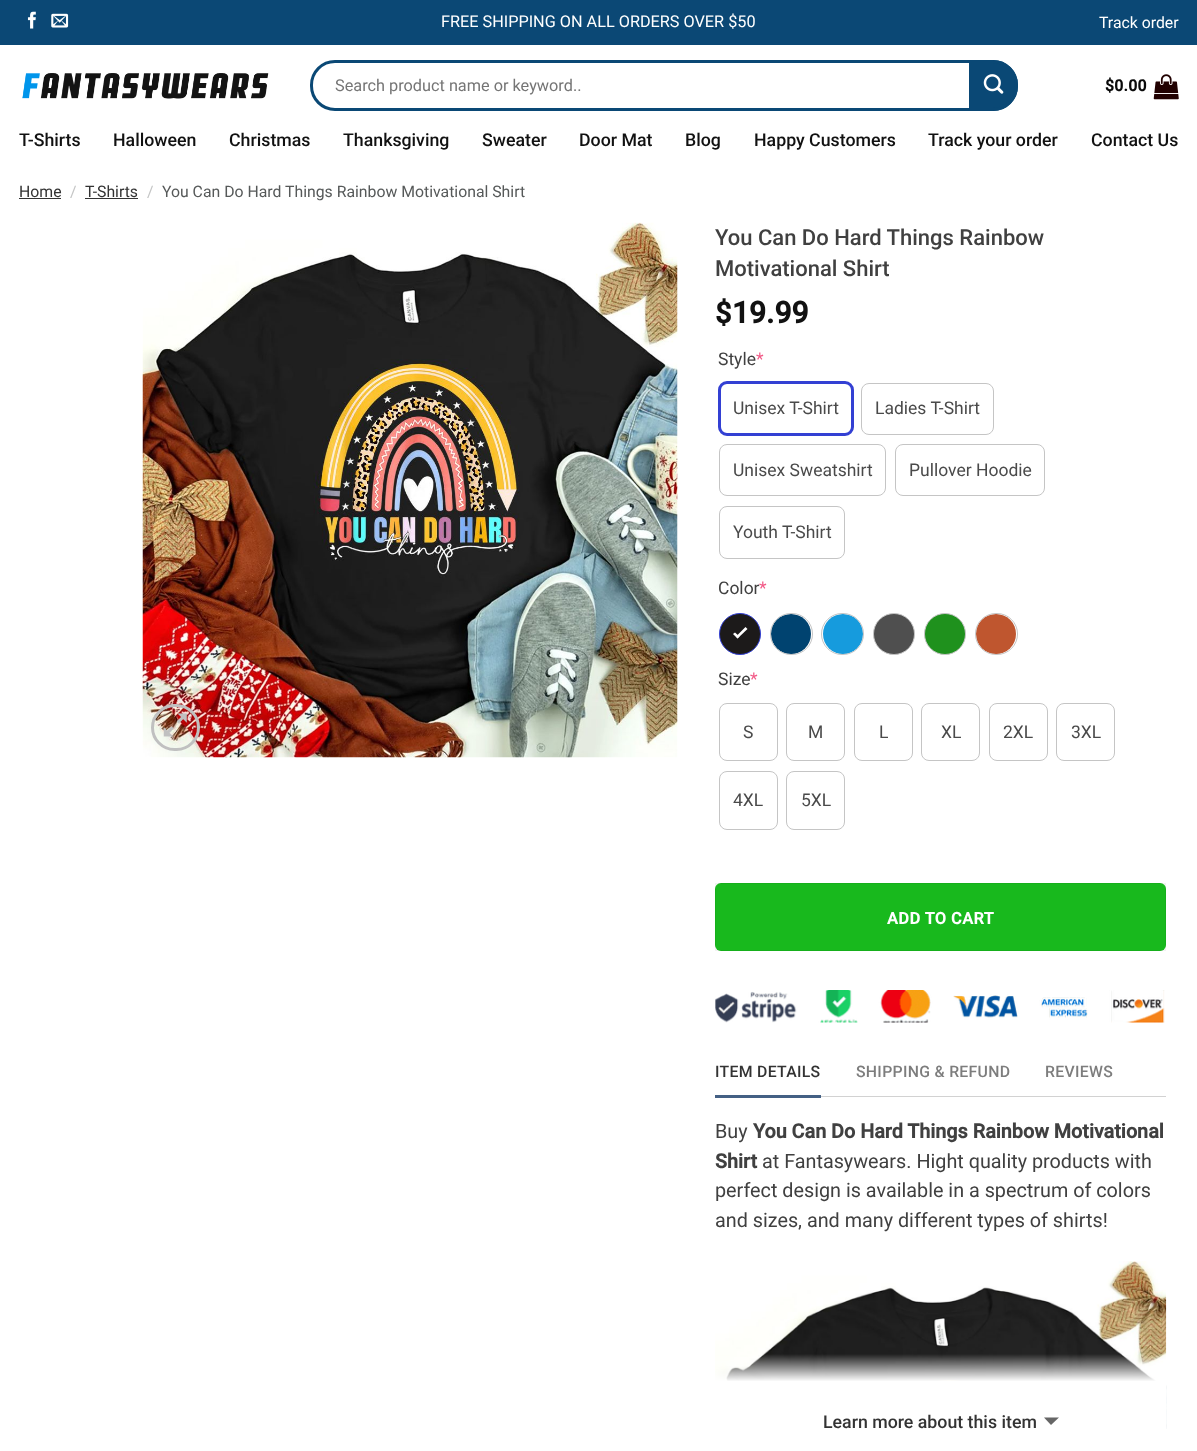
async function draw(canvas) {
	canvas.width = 1197;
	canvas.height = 1451;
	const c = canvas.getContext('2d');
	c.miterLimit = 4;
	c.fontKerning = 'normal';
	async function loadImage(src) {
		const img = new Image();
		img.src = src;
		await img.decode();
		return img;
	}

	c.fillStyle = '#fff';
	c.fillRect(0, 0, 1197, 1451);
	c.fillStyle = '#0b4875';
	c.fillRect(0, 0, 1197, 45);
	c.drawImage(await loadImage('img1.png'), 27, 11, 9, 18);
	c.drawImage(await loadImage('img2.png'), 51, 13, 18, 15);
	c.font = '16.25px Roboto';
	c.fillStyle = '#fff';
	c.fillText('FREE SHIPPING ON ALL ORDERS OVER $50', 441, 27);
	c.font = '15.8px Roboto';
	c.fillText('Track order', 1099, 28);
	c.drawImage(await loadImage('img3.png'), 22, 73, 247, 26);
	c.beginPath();
	c.roundRect(311.5, 61.5, 705, 48, 23.5);
	c.strokeStyle = '#0a4875';
	c.lineWidth = 3;
	c.stroke();
	c.font = '16.3px Roboto';
	c.fillStyle = '#757575';
	c.fillText('Search product name or keyword..', 335, 91);
	c.fillStyle = '#0a4875';
	c.beginPath();
	c.roundRect(970.5, 61.5, 46, 48, [0, 23.5, 23.5, 0]);
	c.fill();
	c.stroke();
	c.drawImage(await loadImage('img4.png'), 983, 74, 21, 20);
	c.letterSpacing = '0.3px';
	c.font = 'bold 15.8px Roboto';
	c.fillStyle = '#0a0a0a';
	c.fillText('$0.00', 1105, 91);
	c.drawImage(await loadImage('img5.png'), 1153, 74, 26, 26);
	c.letterSpacing = '0px';
	c.font = '500 17.75px Roboto';
	c.fillStyle = '#111';
	for (const [text, x, y] of [
		['T-Shirts', 19, 146],
		['Halloween', 113, 146],
		['Christmas', 229, 146],
		['Thanksgiving', 343, 146],
		['Sweater', 482, 146],
		['Door Mat', 579, 146],
		['Blog', 685, 146],
		['Happy Customers', 754, 146],
		['Track your order', 928, 146],
		['Contact Us', 1091, 146],
	]) {
		c.fillText(text, x, y);
	}
	c.font = '15.8px Roboto';
	c.fillStyle = '#333';
	c.fillText('Home', 19, 197);
	c.fillRect(19, 198, 42, 1);
	c.fillStyle = '#c4c5c5';
	c.fillText('/', 70, 197);
	c.fillStyle = '#333';
	c.fillText('T-Shirts', 85, 197);
	c.fillRect(85, 198, 53, 1);
	c.fillStyle = '#c4c5c5';
	c.fillText('/', 147, 197);
	c.fillStyle = '#565959';
	c.fillText('You Can Do Hard Things Rainbow Motivational Shirt', 162, 197);
	c.drawImage(await loadImage('img6.png'), 142, 222, 536, 536);
	c.beginPath();
	c.roundRect(152.5, 705.5, 46, 44, 22);
	c.strokeStyle = '#c0c0c0';
	c.stroke();
	c.drawImage(await loadImage('img7.png'), 163, 713, 24, 24);
	c.font = '500 22px Roboto';
	c.fillStyle = '#404040';
	c.fillText('You Can Do Hard Things Rainbow', 715, 245);
	c.fillText('Motivational Shirt', 715, 276);
	c.font = 'bold 29px Roboto';
	c.fillStyle = '#111';
	c.fillText('$', 715, 323);
	c.font = 'bold 30px Roboto';
	c.fillText('19.99', 732, 323);
	c.font = '17.5px Roboto';
	c.fillStyle = '#404040';
	c.fillText('Style', 718, 365);
	c.fillStyle = '#f25a87';
	c.fillText('*', 756, 365);
	c.beginPath();
	c.roundRect(719.5, 382.5, 133, 52, 7.5);
	c.strokeStyle = '#3340d3';
	c.stroke();
	c.fillStyle = '#4a4a4a';
	c.fillText('Unisex T-Shirt', 733, 414);
	c.beginPath();
	c.roundRect(861.5, 383.5, 132, 51, 7.5);
	c.strokeStyle = '#c5c5c5';
	c.lineWidth = 1;
	c.stroke();
	c.fillText('Ladies T-Shirt', 875, 414);
	c.beginPath();
	c.roundRect(719.5, 444.5, 166, 51, 7.5);
	c.stroke();
	c.fillText('Unisex Sweatshirt', 733, 476);
	c.beginPath();
	c.roundRect(895.5, 444.5, 149, 51, 7.5);
	c.stroke();
	c.fillText('Pullover Hoodie', 909, 476);
	c.beginPath();
	c.roundRect(719.5, 506.5, 125, 52, 7.5);
	c.stroke();
	c.fillText('Youth T-Shirt', 733, 538);
	c.fillStyle = '#404040';
	c.fillText('Color', 718, 594);
	c.fillStyle = '#f25a87';
	c.fillText('*', 759, 594);
	c.fillStyle = '#1c1a1a';
	c.beginPath();
	c.arc(740, 634, 20.5, 0, 2 * Math.PI);
	c.fill();
	c.strokeStyle = '#3340d3';
	c.stroke();
	c.fillStyle = '#fff';
	c.beginPath();
	c.moveTo(736, 636.5);
	c.lineTo(745.5, 627);
	c.lineTo(747.5, 629);
	c.lineTo(737.5, 638.5);
	c.closePath();
	c.fill();
	c.beginPath();
	c.moveTo(733, 634);
	c.lineTo(735, 632.5);
	c.lineTo(739.5, 636.5);
	c.lineTo(737.5, 638.5);
	c.closePath();
	c.fill();
	c.fillStyle = '#004370';
	c.beginPath();
	c.arc(791, 634, 20, 0, 2 * Math.PI);
	c.fill();
	c.beginPath();
	c.roundRect(770.5, 613.5, 42, 41, 20.5);
	c.strokeStyle = '#c5c5c5';
	c.stroke();
	c.fillStyle = '#169bdd';
	c.beginPath();
	c.arc(843, 634, 20, 0, 2 * Math.PI);
	c.fill();
	c.beginPath();
	c.roundRect(821.5, 613.5, 42, 41, 20.5);
	c.stroke();
	c.fillStyle = '#4f4f4f';
	c.beginPath();
	c.arc(894, 634, 20.5, 0, 2 * Math.PI);
	c.fill();
	c.stroke();
	c.fillStyle = '#1f911d';
	c.beginPath();
	c.arc(945, 634, 20.5, 0, 2 * Math.PI);
	c.fill();
	c.stroke();
	c.fillStyle = '#bf562f';
	c.beginPath();
	c.arc(996, 634, 20, 0, 2 * Math.PI);
	c.fill();
	c.beginPath();
	c.roundRect(975.5, 613.5, 42, 41, 20.5);
	c.stroke();
	c.fillStyle = '#404040';
	c.fillText('Size', 718, 685);
	c.fillStyle = '#f25a87';
	c.fillText('*', 750, 685);
	c.beginPath();
	c.roundRect(719.5, 703.5, 58, 57, 7.5);
	c.stroke();
	c.fillStyle = '#4a4a4a';
	c.fillText('S', 743, 738);
	c.beginPath();
	c.roundRect(786.5, 703.5, 58, 57, 7.5);
	c.stroke();
	c.fillText('M', 808, 738);
	c.beginPath();
	c.roundRect(854.5, 703.5, 58, 57, 7.5);
	c.stroke();
	c.fillText('L', 879, 738);
	c.beginPath();
	c.roundRect(921.5, 703.5, 58, 57, 7.5);
	c.stroke();
	c.fillText('XL', 941, 738);
	c.beginPath();
	c.roundRect(989.5, 703.5, 58, 57, 7.5);
	c.stroke();
	c.fillText('2XL', 1003, 738);
	c.beginPath();
	c.roundRect(1056.5, 703.5, 58, 57, 7.5);
	c.stroke();
	c.fillText('3XL', 1071, 738);
	c.beginPath();
	c.roundRect(719.5, 771.5, 58, 58, 7.5);
	c.stroke();
	c.fillText('4XL', 733, 806);
	c.beginPath();
	c.roundRect(786.5, 771.5, 58, 58, 7.5);
	c.stroke();
	c.fillText('5XL', 801, 806);
	c.fillStyle = '#18b91d';
	c.beginPath();
	c.roundRect(715, 883, 451, 68, 6);
	c.fill();
	c.strokeStyle = '#0000000d';
	c.strokeRect(715.5, 883.5, 450, 67);
	c.letterSpacing = '0.5px';
	c.font = 'bold 16.25px Roboto';
	c.fillStyle = '#fff';
	c.fillText('ADD TO CART', 887, 924);
	c.drawImage(await loadImage('img8.png'), 715, 990, 450, 33);
	c.fillStyle = '#d2d2d2';
	c.fillRect(821, 1096, 345, 1);
	c.letterSpacing = '0.3px';
	c.font = '500 15.8px Roboto';
	c.fillStyle = '#333';
	c.fillText('ITEM DETAILS', 715, 1077);
	c.fillStyle = '#446084';
	c.fillRect(715, 1095, 106, 3);
	c.fillStyle = '#7d7d7d';
	c.fillText('SHIPPING & REFUND', 856, 1077);
	c.fillText('REVIEWS', 1045, 1077);
	c.letterSpacing = '0px';
	c.font = '19.8px Roboto';
	c.fillStyle = '#404040';
	c.fillText('Buy', 715, 1138);
	c.font = 'bold 19.8px Roboto';
	c.fillText('You Can Do Hard Things Rainbow Motivational', 753, 1138);
	c.fillText('Shirt', 715, 1168);
	c.font = '19.8px Roboto';
	for (const [text, x, y] of [
		['at Fantasywears. Hight quality products with', 762, 1168],
		['perfect design is available in a spectrum of colors', 715, 1197],
		['and sizes, and many different types of shirts!', 715, 1227],
	]) {
		c.fillText(text, x, y);
	}
	c.drawImage(await loadImage('img9.png'), 715, 1261, 452, 168);
	c.fillStyle = '#fff';
	c.fillRect(715, 1409, 451, 20);
	c.font = '500 17.75px Roboto';
	c.fillStyle = '#333';
	c.fillText('Learn more about this item', 823, 1428);
	c.fillStyle = '#666';
	c.beginPath();
	c.moveTo(1044, 1417.5);
	c.lineTo(1059, 1417.5);
	c.lineTo(1051, 1425);
	c.closePath();
	c.fill();
}

draw(document.querySelector('canvas'));
